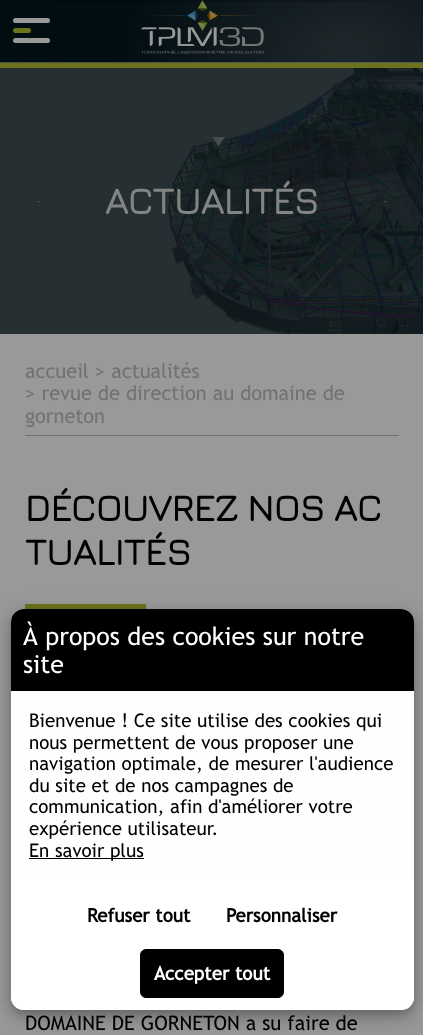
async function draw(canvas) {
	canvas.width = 423;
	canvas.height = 1035;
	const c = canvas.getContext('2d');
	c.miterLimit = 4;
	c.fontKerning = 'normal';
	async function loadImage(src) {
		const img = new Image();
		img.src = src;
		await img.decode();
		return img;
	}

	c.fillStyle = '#999';
	c.fillRect(0, 0, 423, 1035);
	c.fillStyle = '#262f32';
	c.fillRect(0, 68, 423, 266);
	c.drawImage(await loadImage('img1.png'), 0, 0, 423, 63);
	c.fillStyle = '#999';
	c.beginPath();
	c.roundRect(13, 18, 37, 5, 2.5);
	c.fill();
	c.fillStyle = '#6b731b';
	c.beginPath();
	c.roundRect(13, 28, 18, 5, 2.5);
	c.fill();
	c.fillStyle = '#999';
	c.beginPath();
	c.roundRect(13, 38, 37, 5, 2.5);
	c.fill();
	c.drawImage(await loadImage('img2.png'), 141, 0, 123, 54);
	c.fillStyle = '#6b731b';
	c.fillRect(0, 63, 423, 5);
	c.drawImage(await loadImage('img3.png'), 167, 68, 256, 266);
	c.fillStyle = '#505658cc';
	c.beginPath();
	c.moveTo(224.5, 137);
	c.lineTo(212.5, 137);
	c.lineTo(218.5, 146.5);
	c.lineTo(224.5, 137.5);
	c.closePath();
	c.fill();
	c.fillStyle = '#797979';
	c.fillRect(38, 201, 1, 1);
	c.font = 'bold 37.5px Jura';
	c.fillStyle = '#828584';
	c.fillText('ACTUALITÉS', 105, 214);
	c.fillStyle = '#797979';
	c.fillRect(385, 201, 1, 1);
	c.font = '20px Trebuchet MS';
	c.fillStyle = '#727272';
	for (const [text, x, y] of [
		['accueil > actualités', 25, 378],
		['> revue de direction au domaine de', 25, 400],
		['gorneton', 25, 423],
	]) {
		c.fillText(text, x, y);
	}
	c.fillRect(25, 435, 374, 1);
	c.font = 'bold 37.5px Jura';
	c.fillStyle = '#000';
	c.fillText('DÉCOUVREZ NOS AC', 25, 521);
	c.fillText('TUALITÉS', 25, 565);
	c.fillStyle = '#6b731b';
	c.fillRect(25, 604, 121, 5);
	c.font = '20px Trebuchet MS';
	c.fillStyle = '#000';
	c.fillText('DOMAINE DE GORNETON a su faire de', 25, 1030);
	c.fillStyle = '#00000030';
	c.filter = 'blur(12.5px)';
	c.beginPath();
	c.roundRect(11, 616, 403, 402, 13);
	c.fill();
	c.filter = 'none';
	c.fillStyle = '#00000033';
	c.filter = 'blur(5px)';
	c.beginPath();
	c.roundRect(11, 614, 403, 401, 13);
	c.fill();
	c.filter = 'none';
	c.fillStyle = '#fefefe';
	c.beginPath();
	c.roundRect(11, 609, 403, 401, 13);
	c.fill();
	c.fillStyle = '#000';
	c.beginPath();
	c.roundRect(11, 609, 403, 82, [13, 13, 0, 0]);
	c.fill();
	c.font = '25px Trebuchet MS';
	c.fillStyle = '#fff';
	c.fillText('À propos des cookies sur notre', 23, 645);
	c.fillText('site', 23, 673);
	c.font = '18.75px Trebuchet MS';
	c.fillStyle = '#000';
	for (const [text, x, y] of [
		['Bienvenue ! Ce site utilise des cookies qui', 29, 727],
		['nous permettent de vous proposer une', 29, 749],
		['navigation optimale, de mesurer l\'audience', 29, 770],
		['du site et de nos campagnes de', 29, 792],
		['communication, afin d\'améliorer votre', 29, 813],
		['expérience utilisateur.', 29, 835],
	]) {
		c.fillText(text, x, y);
	}
	c.fillRect(29, 858, 115, 1);
	c.fillText('En savoir plus', 29, 857);
	c.fillStyle = '#fff';
	c.beginPath();
	c.roundRect(11, 880, 403, 130, [0, 0, 13, 13]);
	c.fill();
	c.font = 'bold 18.75px Trebuchet MS';
	c.fillStyle = '#000';
	c.fillText('Refuser tout', 87, 922);
	c.fillText('Personnaliser', 226, 922);
	c.beginPath();
	c.roundRect(140.5, 949.5, 143, 48, 5.5);
	c.fill();
	c.strokeStyle = '#000';
	c.stroke();
	c.fillStyle = '#fff';
	c.fillText('Accepter tout', 154, 980);
}

draw(document.querySelector('canvas'));
